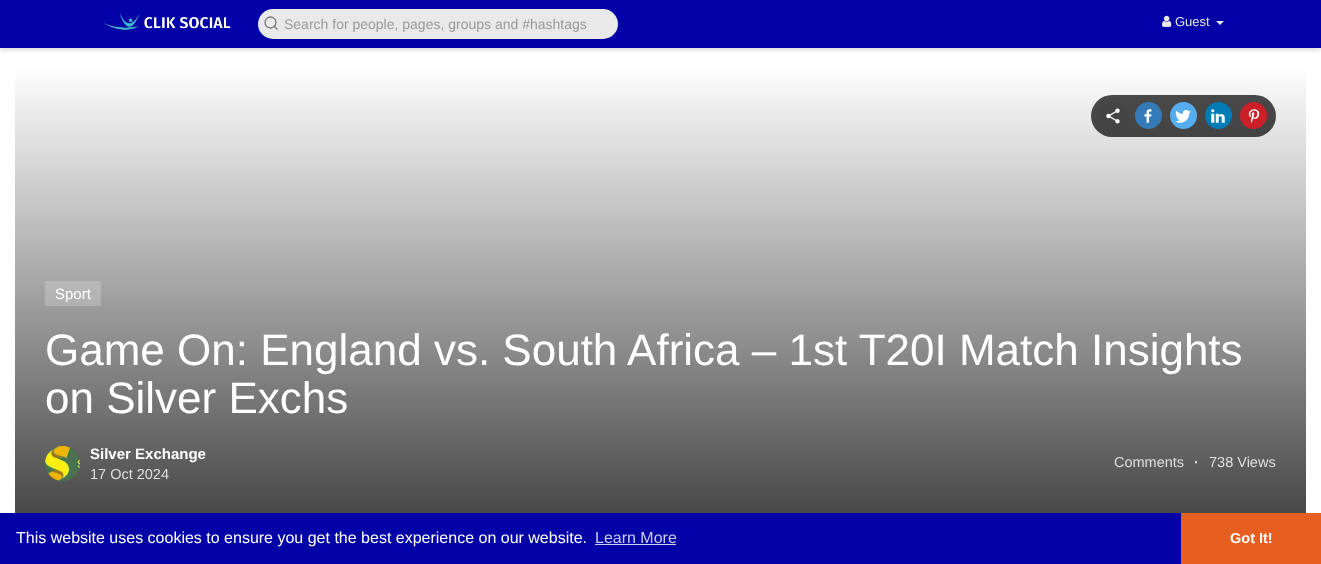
async function draw(canvas) {
	canvas.width = 1321;
	canvas.height = 564;
	const c = canvas.getContext('2d');
	c.miterLimit = 4;
	c.fontKerning = 'normal';
	async function loadImage(src) {
		const img = new Image();
		img.src = src;
		await img.decode();
		return img;
	}
	let gradient;

	c.fillStyle = '#fff';
	c.fillRect(0, 0, 1321, 564);
	c.fillStyle = '#00000026';
	c.filter = 'blur(2px)';
	c.beginPath();
	c.rect(0, 2, 1321, 48);
	c.fill();
	c.filter = 'none';
	c.fillStyle = '#0202a6';
	c.fillRect(0, 0, 1321, 48);
	c.drawImage(await loadImage('img1.png'), 103, 14, 128, 16);
	c.fillStyle = '#e9e9e9';
	c.beginPath();
	c.roundRect(258, 9, 360, 30, 15);
	c.fill();
	c.beginPath();
	c.arc(270.5, 22.5, 5.5, 0, 2 * Math.PI);
	c.strokeStyle = '#787878';
	c.lineWidth = 1.3;
	c.stroke();
	c.beginPath();
	c.moveTo(277, 29);
	c.lineTo(274, 26);
	c.lineCap = 'round';
	c.lineJoin = 'round';
	c.stroke();
	c.font = '14px Liberation Sans';
	c.fillStyle = '#999';
	c.fillText('Search for people, pages, groups and #hashtags', 284, 29);
	c.drawImage(await loadImage('img2.png'), 1162, 15, 10, 12);
	c.font = '13px Liberation Sans';
	c.fillStyle = '#e8e8e8';
	c.fillText('Guest', 1175, 26);
	c.beginPath();
	c.moveTo(1216, 21);
	c.lineTo(1224, 21);
	c.lineTo(1220, 25);
	c.closePath();
	c.fill();
	gradient = c.createLinearGradient(661, 65, 661, 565);
	gradient.addColorStop(0, '#fff');
	gradient.addColorStop(1, '#333');
	c.fillStyle = gradient;
	c.beginPath();
	c.roundRect(15, 65, 1291, 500, 10);
	c.fill();
	c.fillStyle = '#000000b3';
	c.beginPath();
	c.roundRect(1091, 95, 185, 42, 21);
	c.fill();
	c.fillStyle = '#444';
	c.beginPath();
	c.arc(1113.5, 115.5, 13.5, 0, 2 * Math.PI);
	c.fill();
	c.drawImage(await loadImage('img3.png'), 1106, 108, 14, 16);
	c.fillStyle = '#337ab7';
	c.beginPath();
	c.arc(1148.5, 115.5, 13.5, 0, 2 * Math.PI);
	c.fill();
	c.drawImage(await loadImage('img4.png'), 1144, 109, 8, 14);
	c.fillStyle = '#55acee';
	c.beginPath();
	c.arc(1183.5, 115.5, 13.5, 0, 2 * Math.PI);
	c.fill();
	c.drawImage(await loadImage('img5.png'), 1175, 110, 16, 13);
	c.fillStyle = '#007bb6';
	c.beginPath();
	c.arc(1218.5, 115.5, 13.5, 0, 2 * Math.PI);
	c.fill();
	c.drawImage(await loadImage('img6.png'), 1211, 109, 14, 14);
	c.fillStyle = '#cb2027';
	c.beginPath();
	c.arc(1253.5, 115.5, 13.5, 0, 2 * Math.PI);
	c.fill();
	c.drawImage(await loadImage('img7.png'), 1248, 109, 12, 14);
	gradient = c.createLinearGradient(661, 65, 661, 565);
	gradient.addColorStop(0, '#fff');
	gradient.addColorStop(1, '#5c5c5c');
	c.fillStyle = gradient;
	c.fillRect(45, 281, 56, 25);
	c.font = '15px Liberation Sans';
	c.fillStyle = '#fff';
	c.fillText('Sport', 55, 299);
	c.font = '44px Liberation Sans';
	c.fillText('Game On: England vs. South Africa – 1st T20I Match Insights', 45, 365);
	c.fillText('on Silver Exchs', 45, 413);
	c.drawImage(await loadImage('img8.png'), 45, 446, 35, 35);
	c.font = 'bold 15px Liberation Sans';
	c.fillText('Silver Exchange', 90, 459);
	c.font = '14.5px Liberation Sans';
	c.fillStyle = '#dfdfdf';
	c.fillText('17 Oct 2024', 90, 479);
	c.fillText('Comments', 1114, 467);
	c.font = 'bold 14.5px Liberation Sans';
	c.fillText('·', 1194, 467);
	c.font = '14.5px Liberation Sans';
	c.fillText('738 Views', 1209, 467);
	c.fillStyle = '#0202a6';
	c.fillRect(0, 513, 1181, 51);
	c.font = '16px Liberation Sans';
	c.fillStyle = '#fff';
	c.fillText('This website uses cookies to ensure you get the best experience on our website.', 16, 543);
	c.fillStyle = '#cccced';
	c.fillText('Learn More', 595, 543);
	c.fillRect(595, 544, 81, 1);
	c.fillStyle = '#e65e20';
	c.fillRect(1181, 513, 140, 51);
	c.font = 'bold 14.5px Liberation Sans';
	c.fillStyle = '#fff';
	c.fillText('Got It!', 1230, 543);
}

draw(document.querySelector('canvas'));
